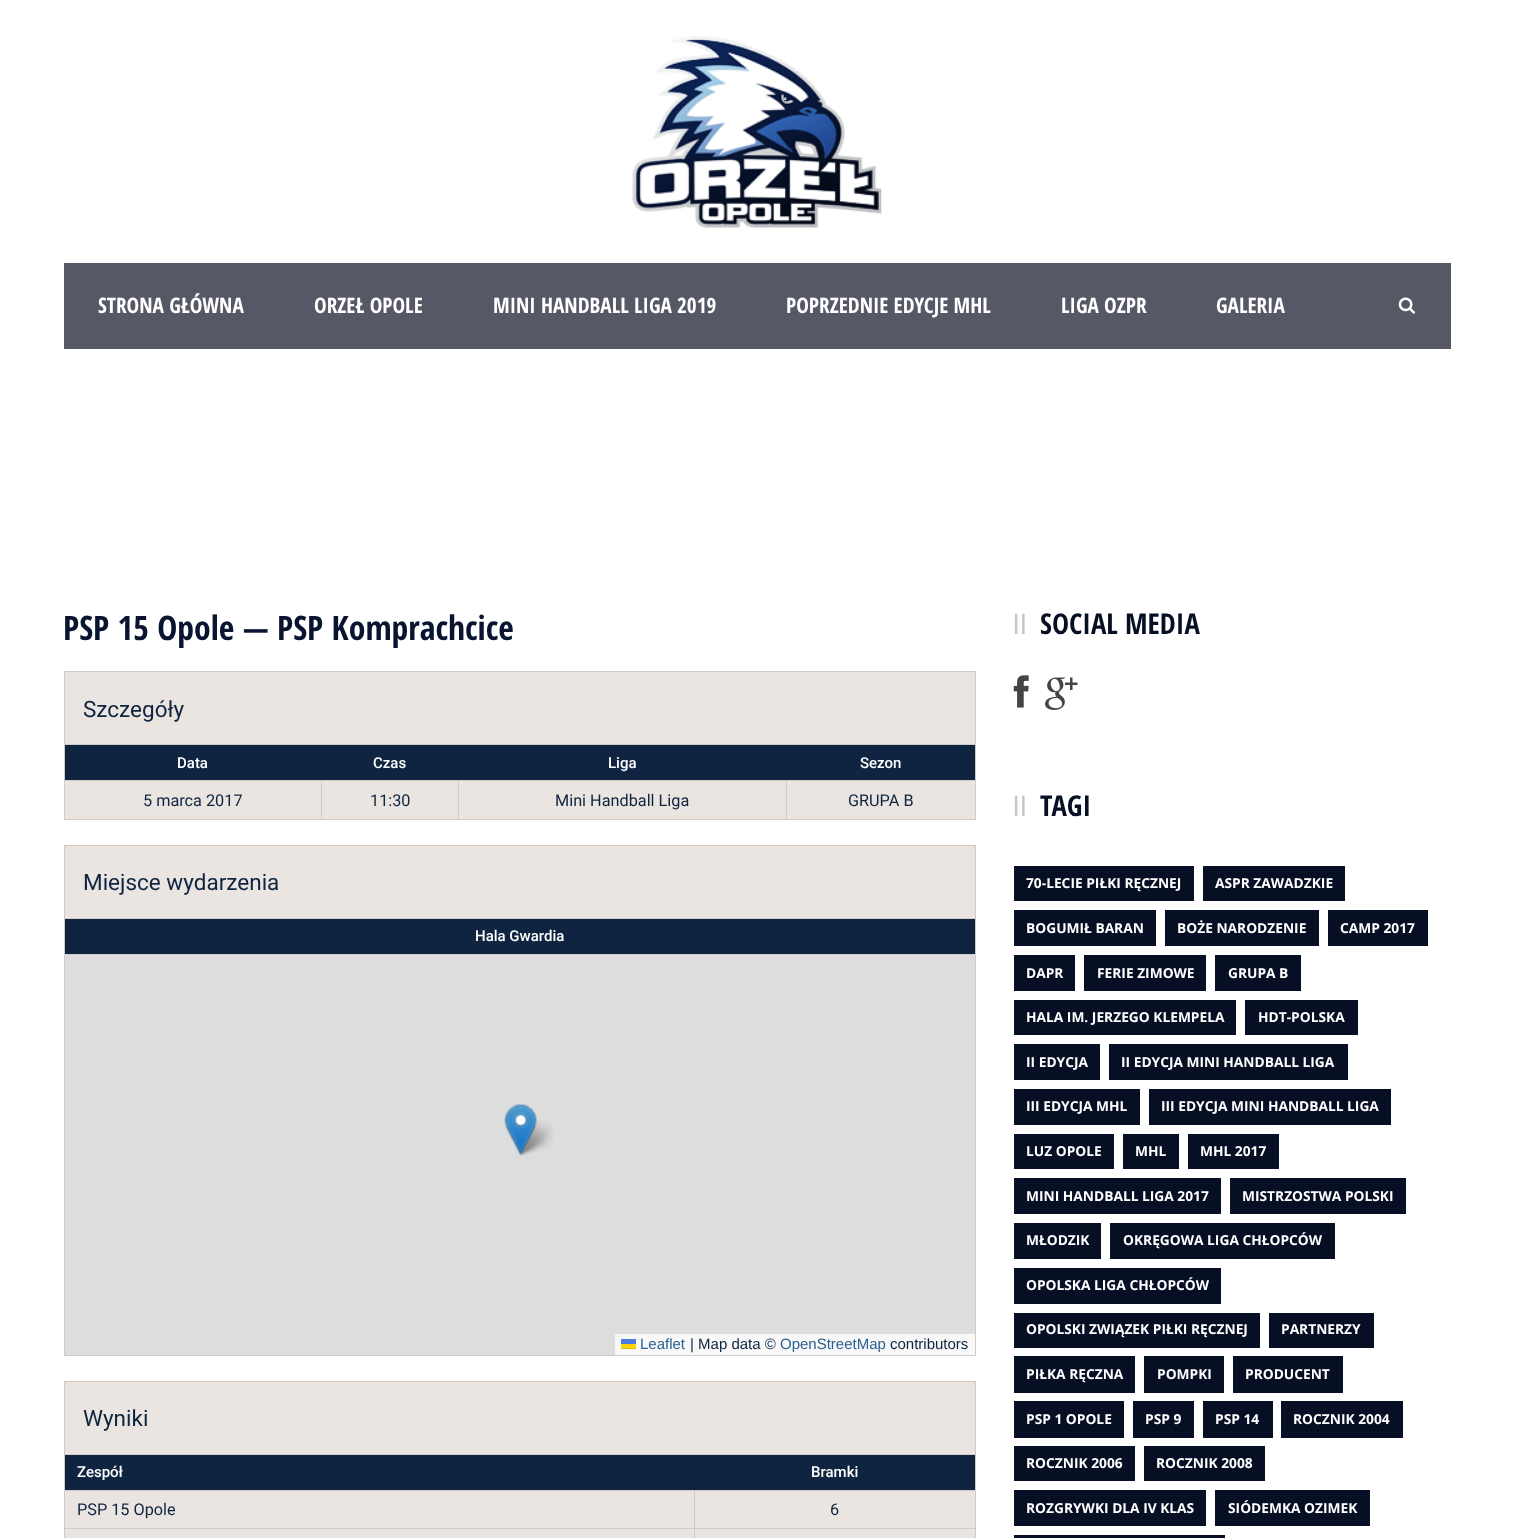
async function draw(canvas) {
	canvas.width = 1513;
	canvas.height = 1538;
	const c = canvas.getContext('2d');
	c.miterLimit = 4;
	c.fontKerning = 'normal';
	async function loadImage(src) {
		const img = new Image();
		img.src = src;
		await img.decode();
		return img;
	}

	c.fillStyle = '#fff';
	c.fillRect(0, 0, 1513, 1538);
	c.drawImage(await loadImage('img1.png'), 632, 36, 250, 192);
	c.fillStyle = '#565865';
	c.fillRect(64, 263, 1387, 86);
	c.font = 'bold 21.25px Open Sans Condensed';
	c.fillStyle = '#fff';
	for (const [text, x, y] of [
		['STRONA GŁÓWNA', 98, 313],
		['ORZEŁ OPOLE', 314, 313],
		['MINI HANDBALL LIGA 2019', 493, 313],
		['POPRZEDNIE EDYCJE MHL', 786, 313],
		['LIGA OZPR', 1061, 313],
		['GALERIA', 1216, 313],
	]) {
		c.fillText(text, x, y);
	}
	c.drawImage(await loadImage('img2.png'), 1398, 297, 17, 17);
	c.font = 'bold 33.75px Open Sans Condensed';
	c.fillStyle = '#081430';
	c.fillText('PSP 15 Opole — PSP Komprachcice', 63, 640);
	for (const [x, y, w, h, color] of [
		[65, 672, 910, 72, '#eae5e0'],
		[64, 671, 912, 1, '#d0cbc6'],
		[975, 671, 1, 73, '#d0cbc6'],
		[64, 671, 1, 73, '#d0cbc6'],
	]) {
		c.fillStyle = color;
		c.fillRect(x, y, w, h);
	}
	c.font = '22.5px Roboto';
	c.fillStyle = '#0e2440';
	c.fillText('Szczegóły', 83, 717);
	for (const [x, y, w, h, color] of [
		[65, 781, 910, 38, '#eae5e0'],
		[64, 744, 912, 1, '#d0cbc6'],
		[975, 744, 1, 76, '#d0cbc6'],
		[64, 819, 912, 1, '#d0cbc6'],
		[64, 744, 1, 76, '#d0cbc6'],
		[65, 745, 910, 35, '#0e2440'],
	]) {
		c.fillStyle = color;
		c.fillRect(x, y, w, h);
	}
	c.font = '500 15px Roboto';
	c.fillStyle = '#fff';
	for (const [text, x, y] of [
		['Data', 177, 768],
		['Czas', 373, 768],
		['Liga', 608, 768],
		['Sezon', 860, 768],
	]) {
		c.fillText(text, x, y);
	}
	for (const [x, y, w, h, color] of [
		[786, 780, 190, 1, '#d0cbc6'],
		[786, 780, 1, 40, '#d0cbc6'],
		[458, 780, 330, 1, '#d0cbc6'],
		[458, 780, 1, 40, '#d0cbc6'],
		[321, 780, 138, 1, '#d0cbc6'],
		[321, 780, 1, 40, '#d0cbc6'],
		[64, 780, 259, 1, '#d0cbc6'],
	]) {
		c.fillStyle = color;
		c.fillRect(x, y, w, h);
	}
	c.font = '16.25px Roboto';
	c.fillStyle = '#0e2440';
	for (const [text, x, y] of [
		['5 marca 2017', 143, 806],
		['11:30', 370, 806],
		['Mini Handball Liga', 555, 806],
		['GRUPA B', 848, 806],
	]) {
		c.fillText(text, x, y);
	}
	for (const [x, y, w, h, color] of [
		[65, 846, 910, 72, '#eae5e0'],
		[64, 845, 912, 1, '#d0cbc6'],
		[975, 845, 1, 73, '#d0cbc6'],
		[64, 845, 1, 73, '#d0cbc6'],
	]) {
		c.fillStyle = color;
		c.fillRect(x, y, w, h);
	}
	c.font = '22.5px Roboto';
	c.fillStyle = '#0e2440';
	c.fillText('Miejsce wydarzenia', 83, 890);
	for (const [x, y, w, h, color] of [
		[64, 918, 912, 1, '#d0cbc6'],
		[975, 918, 1, 438, '#d0cbc6'],
		[64, 1355, 912, 1, '#d0cbc6'],
		[64, 918, 1, 438, '#d0cbc6'],
		[65, 919, 910, 35, '#0e2440'],
	]) {
		c.fillStyle = color;
		c.fillRect(x, y, w, h);
	}
	c.font = '500 15px Roboto';
	c.fillStyle = '#fff';
	c.fillText('Hala Gwardia', 475, 941);
	c.fillStyle = '#d0cbc6';
	c.fillRect(64, 954, 912, 1);
	c.fillStyle = '#ddd';
	c.fillRect(65, 955, 910, 400);
	c.drawImage(await loadImage('img4.png'), 516, 1120, 37, 36);
	c.drawImage(await loadImage('img3.png'), 504, 1103, 33, 53);
	c.fillStyle = '#f8f8f8';
	c.fillRect(615, 1334, 360, 21);
	c.font = '15px Liberation Sans';
	c.fillStyle = '#2b6291';
	c.fillText('Leaflet', 640, 1349);
	for (const [x, y, w, h, color] of [
		[621, 1339, 15, 5, '#4c7be1'],
		[621, 1344, 15, 4, '#ffd500'],
		[621, 1348, 15, 1, '#e0bc00'],
	]) {
		c.fillStyle = color;
		c.fillRect(x, y, w, h);
	}
	c.fillStyle = '#0e2440';
	c.fillText('| Map data ©', 690, 1349);
	c.fillStyle = '#2b6291';
	c.fillText('OpenStreetMap', 780, 1349);
	c.fillStyle = '#0e2440';
	c.fillText('contributors', 890, 1349);
	for (const [x, y, w, h, color] of [
		[65, 1382, 910, 72, '#eae5e0'],
		[64, 1381, 912, 1, '#d0cbc6'],
		[975, 1381, 1, 73, '#d0cbc6'],
		[64, 1381, 1, 73, '#d0cbc6'],
	]) {
		c.fillStyle = color;
		c.fillRect(x, y, w, h);
	}
	c.font = '22.5px Roboto';
	c.fillStyle = '#0e2440';
	c.fillText('Wyniki', 83, 1426);
	for (const [x, y, w, h, color] of [
		[65, 1491, 910, 47, '#eae5e0'],
		[64, 1454, 912, 1, '#d0cbc6'],
		[975, 1454, 1, 84, '#d0cbc6'],
		[64, 1454, 1, 84, '#d0cbc6'],
		[65, 1455, 910, 35, '#0e2440'],
	]) {
		c.fillStyle = color;
		c.fillRect(x, y, w, h);
	}
	c.font = '500 15px Roboto';
	c.fillStyle = '#fff';
	c.fillText('Zespół', 77, 1477);
	c.fillText('Bramki', 811, 1477);
	for (const [x, y, w, h, color] of [
		[694, 1490, 282, 1, '#d0cbc6'],
		[694, 1528, 282, 1, '#d0cbc6'],
		[694, 1528, 1, 10, '#d0cbc6'],
		[64, 1528, 631, 1, '#d0cbc6'],
		[694, 1490, 1, 39, '#d0cbc6'],
		[64, 1490, 631, 1, '#d0cbc6'],
	]) {
		c.fillStyle = color;
		c.fillRect(x, y, w, h);
	}
	c.font = '16.25px Roboto';
	c.fillStyle = '#0e2440';
	c.fillText('PSP 15 Opole', 77, 1515);
	c.fillText('6', 830, 1515);
	c.letterSpacing = '1px';
	c.font = '28px Liberation Sans';
	c.fillStyle = '#c5c5c5';
	c.fillText('ll', 1013, 634);
	c.letterSpacing = '0px';
	c.font = 'bold 28.75px Open Sans Condensed';
	c.fillStyle = '#060f24';
	c.fillText('SOCIAL MEDIA', 1040, 634);
	c.drawImage(await loadImage('img5.png'), 1013, 675, 16, 33);
	c.drawImage(await loadImage('img6.png'), 1045, 677, 33, 33);
	c.letterSpacing = '1px';
	c.font = '28px Liberation Sans';
	c.fillStyle = '#c5c5c5';
	c.fillText('ll', 1013, 816);
	c.letterSpacing = '0px';
	c.font = 'bold 28.75px Open Sans Condensed';
	c.fillStyle = '#060f24';
	c.fillText('TAGI', 1040, 816);
	c.fillRect(1014, 866, 180, 35);
	c.font = 'bold 13.75px Open Sans';
	c.fillStyle = '#fff';
	c.fillText('70-LECIE PIŁKI RĘCZNEJ', 1026, 888);
	c.fillStyle = '#060f24';
	c.fillRect(1203, 866, 142, 35);
	c.fillStyle = '#fff';
	c.fillText('ASPR ZAWADZKIE', 1215, 888);
	c.fillStyle = '#060f24';
	c.fillRect(1014, 910, 142, 36);
	c.fillStyle = '#fff';
	c.fillText('BOGUMIŁ BARAN', 1026, 933);
	c.fillStyle = '#060f24';
	c.fillRect(1165, 910, 154, 36);
	c.fillStyle = '#fff';
	c.fillText('BOŻE NARODZENIE', 1177, 933);
	c.fillStyle = '#060f24';
	c.fillRect(1328, 910, 100, 36);
	c.fillStyle = '#fff';
	c.fillText('CAMP 2017', 1340, 933);
	c.fillStyle = '#060f24';
	c.fillRect(1014, 955, 61, 36);
	c.fillStyle = '#fff';
	c.fillText('DAPR', 1026, 978);
	c.fillStyle = '#060f24';
	c.fillRect(1084, 955, 122, 36);
	c.fillStyle = '#fff';
	c.fillText('FERIE ZIMOWE', 1097, 978);
	c.fillStyle = '#060f24';
	c.fillRect(1215, 955, 86, 36);
	c.fillStyle = '#fff';
	c.fillText('GRUPA B', 1228, 978);
	c.fillStyle = '#060f24';
	c.fillRect(1014, 1000, 222, 35);
	c.fillStyle = '#fff';
	c.fillText('HALA IM. JERZEGO KLEMPELA', 1026, 1022);
	c.fillStyle = '#060f24';
	c.fillRect(1245, 1000, 113, 35);
	c.fillStyle = '#fff';
	c.fillText('HDT-POLSKA', 1258, 1022);
	c.fillStyle = '#060f24';
	c.fillRect(1014, 1044, 86, 36);
	c.fillStyle = '#fff';
	c.fillText('II EDYCJA', 1026, 1067);
	c.fillStyle = '#060f24';
	c.fillRect(1109, 1044, 239, 36);
	c.fillStyle = '#fff';
	c.fillText('II EDYCJA MINI HANDBALL LIGA', 1121, 1067);
	c.fillStyle = '#060f24';
	c.fillRect(1014, 1089, 126, 36);
	c.fillStyle = '#fff';
	c.fillText('III EDYCJA MHL', 1026, 1111);
	c.fillStyle = '#060f24';
	c.fillRect(1149, 1089, 242, 36);
	c.fillStyle = '#fff';
	c.fillText('III EDYCJA MINI HANDBALL LIGA', 1161, 1111);
	c.fillStyle = '#060f24';
	c.fillRect(1014, 1134, 100, 35);
	c.fillStyle = '#fff';
	c.fillText('LUZ OPOLE', 1026, 1156);
	c.fillStyle = '#060f24';
	c.fillRect(1123, 1134, 56, 35);
	c.fillStyle = '#fff';
	c.fillText('MHL', 1135, 1156);
	c.fillStyle = '#060f24';
	c.fillRect(1188, 1134, 91, 35);
	c.fillStyle = '#fff';
	c.fillText('MHL 2017', 1200, 1156);
	c.fillStyle = '#060f24';
	c.fillRect(1014, 1178, 207, 36);
	c.fillStyle = '#fff';
	c.fillText('MINI HANDBALL LIGA 2017', 1026, 1201);
	c.fillStyle = '#060f24';
	c.fillRect(1230, 1178, 176, 36);
	c.fillStyle = '#fff';
	c.fillText('MISTRZOSTWA POLSKI', 1242, 1201);
	c.fillStyle = '#060f24';
	c.fillRect(1014, 1223, 87, 36);
	c.fillStyle = '#fff';
	c.fillText('MŁODZIK', 1026, 1245);
	c.fillStyle = '#060f24';
	c.fillRect(1110, 1223, 225, 36);
	c.fillStyle = '#fff';
	c.fillText('OKRĘGOWA LIGA CHŁOPCÓW', 1123, 1245);
	c.fillStyle = '#060f24';
	c.fillRect(1014, 1268, 207, 36);
	c.fillStyle = '#fff';
	c.fillText('OPOLSKA LIGA CHŁOPCÓW', 1026, 1290);
	c.fillStyle = '#060f24';
	c.fillRect(1014, 1313, 246, 35);
	c.fillStyle = '#fff';
	c.fillText('OPOLSKI ZWIĄZEK PIŁKI RĘCZNEJ', 1026, 1334);
	c.fillStyle = '#060f24';
	c.fillRect(1269, 1313, 105, 35);
	c.fillStyle = '#fff';
	c.fillText('PARTNERZY', 1281, 1334);
	c.fillStyle = '#060f24';
	c.fillRect(1014, 1356, 121, 37);
	c.fillStyle = '#fff';
	c.fillText('PIŁKA RĘCZNA', 1026, 1379);
	c.fillStyle = '#060f24';
	c.fillRect(1144, 1356, 80, 37);
	c.fillStyle = '#fff';
	c.fillText('POMPKI', 1157, 1379);
	c.fillStyle = '#060f24';
	c.fillRect(1233, 1356, 110, 37);
	c.fillStyle = '#fff';
	c.fillText('PRODUCENT', 1245, 1379);
	c.fillStyle = '#060f24';
	c.fillRect(1014, 1401, 110, 37);
	c.fillStyle = '#fff';
	c.fillText('PSP 1 OPOLE', 1026, 1424);
	c.fillStyle = '#060f24';
	c.fillRect(1133, 1401, 61, 37);
	c.fillStyle = '#fff';
	c.fillText('PSP 9', 1145, 1424);
	c.fillStyle = '#060f24';
	c.fillRect(1203, 1401, 70, 37);
	c.fillStyle = '#fff';
	c.fillText('PSP 14', 1215, 1424);
	c.fillStyle = '#060f24';
	c.fillRect(1281, 1401, 122, 37);
	c.fillStyle = '#fff';
	c.fillText('ROCZNIK 2004', 1293, 1424);
	c.fillStyle = '#060f24';
	c.fillRect(1014, 1446, 121, 35);
	c.fillStyle = '#fff';
	c.fillText('ROCZNIK 2006', 1026, 1468);
	c.fillStyle = '#060f24';
	c.fillRect(1144, 1446, 121, 35);
	c.fillStyle = '#fff';
	c.fillText('ROCZNIK 2008', 1156, 1468);
	c.fillStyle = '#060f24';
	c.fillRect(1014, 1490, 192, 36);
	c.fillStyle = '#fff';
	c.fillText('ROZGRYWKI DLA IV KLAS', 1026, 1513);
	c.fillStyle = '#060f24';
	c.fillRect(1215, 1490, 155, 36);
	c.fillStyle = '#fff';
	c.fillText('SIÓDEMKA OZIMEK', 1228, 1513);
	c.fillStyle = '#060f24';
	c.fillRect(1014, 1535, 211, 3);
}

draw(document.querySelector('canvas'));
